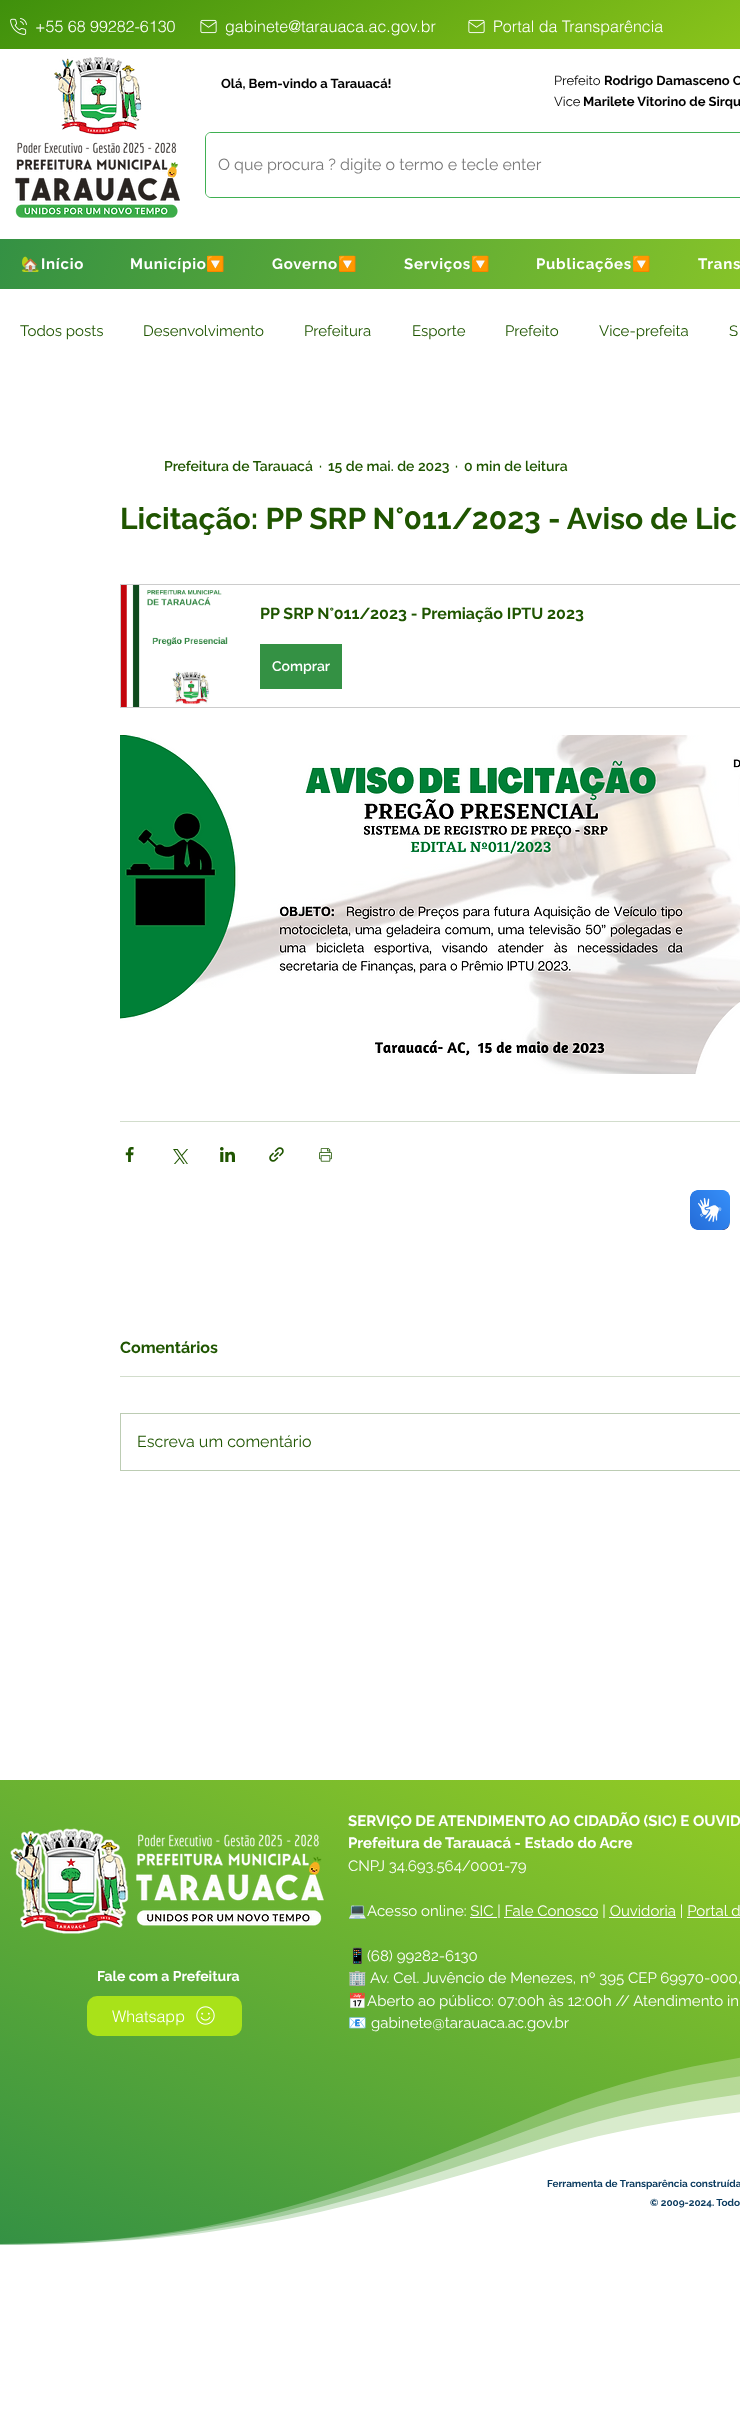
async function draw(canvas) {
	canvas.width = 740;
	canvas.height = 2420;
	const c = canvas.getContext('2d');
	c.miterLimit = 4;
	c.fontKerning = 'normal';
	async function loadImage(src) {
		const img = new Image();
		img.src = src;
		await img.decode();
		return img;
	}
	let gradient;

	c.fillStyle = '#fff';
	c.fillRect(0, 0, 740, 2420);
	gradient = c.createLinearGradient(349, -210, 631, 259);
	gradient.addColorStop(0, '#3f900c');
	gradient.addColorStop(1, '#a0d320');
	c.fillStyle = gradient;
	c.fillRect(0, 0, 740, 49);
	c.drawImage(await loadImage('img1.png'), 10, 18, 17, 17);
	c.font = '300 16px helvetica';
	c.fillStyle = '#fff';
	c.fillText('+55 68 99282-6130', 35, 32);
	c.drawImage(await loadImage('img2.png'), 200, 19, 17, 15);
	c.fillText('gabinete@tarauaca.ac.gov.br', 225, 32);
	c.drawImage(await loadImage('img3.png'), 468, 19, 17, 15);
	c.fillText('Portal da Transparência', 493, 32);
	c.drawImage(await loadImage('img4.png'), 15, 57, 165, 161);
	c.font = 'bold 13px Raleway';
	c.fillStyle = '#000';
	c.fillText('Olá, Bem-vindo a Tarauacá!', 221, 88);
	c.font = '13px Raleway';
	c.fillText('Prefeito', 554, 85);
	c.font = 'bold 13px Raleway';
	c.fillText('Rodrigo Damasceno C', 604, 85);
	c.font = '13px Raleway';
	c.fillText('Vice', 554, 106);
	c.font = 'bold 13px Raleway';
	c.fillText('Marilete Vitorino de Sirqu', 583, 106);
	c.beginPath();
	c.roundRect(205.5, 132.5, 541, 65, 5.5);
	c.strokeStyle = '#3fb052';
	c.stroke();
	c.fillStyle = '#fff';
	c.beginPath();
	c.roundRect(206, 133, 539, 64, 5);
	c.fill();
	c.font = '16px Raleway';
	c.fillStyle = '#787878';
	c.fillText('O que procura ? digite o termo e tecle enter', 218, 170);
	gradient = c.createLinearGradient(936, 417, 44, 111);
	gradient.addColorStop(0, '#a0d320');
	gradient.addColorStop(1, '#349144');
	c.fillStyle = gradient;
	c.fillRect(0, 239, 740, 50);
	c.letterSpacing = '0.75px';
	c.font = 'bold 15px Noto Color Emoji';
	c.fillStyle = '#fff';
	c.fillText('🏡', 21, 269);
	c.font = 'bold 15px Raleway';
	c.fillText('Início', 41, 269);
	c.fillText('Município', 130, 269);
	c.font = 'bold 15px Noto Color Emoji';
	c.fillText('🔽', 206, 269);
	c.font = 'bold 15px Raleway';
	c.fillText('Governo', 272, 269);
	c.font = 'bold 15px Noto Color Emoji';
	c.fillText('🔽', 338, 269);
	c.font = 'bold 15px Raleway';
	c.fillText('Serviços', 404, 269);
	c.font = 'bold 15px Noto Color Emoji';
	c.fillText('🔽', 471, 269);
	c.font = 'bold 15px Raleway';
	c.fillText('Publicações', 536, 269);
	c.font = 'bold 15px Noto Color Emoji';
	c.fillText('🔽', 632, 269);
	c.font = 'bold 15px Raleway';
	c.fillText('Trans', 698, 269);
	c.letterSpacing = '0px';
	c.font = '15px Raleway';
	c.fillStyle = '#1f5500';
	for (const [text, x, y] of [
		['Todos posts', 20, 336],
		['Desenvolvimento', 143, 336],
		['Prefeitura', 304, 336],
		['Esporte', 412, 336],
		['Prefeito', 505, 336],
		['Vice-prefeita', 599, 336],
		['S', 729, 336],
	]) {
		c.fillText(text, x, y);
	}
	c.font = '600 14px Raleway';
	for (const [text, x, y] of [
		['Prefeitura de Tarauacá', 164, 471],
		['·', 319, 471],
		['15 de mai. de 2023', 328, 471],
		['·', 455, 471],
		['0 min de leitura', 464, 471],
	]) {
		c.fillText(text, x, y);
	}
	c.font = 'bold 30px Raleway';
	c.fillText('Licitação: PP SRP N°011/2023 - Aviso de Lic', 120, 529);
	c.strokeStyle = '#ccc';
	c.strokeRect(120.5, 584.5, 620, 123);
	c.drawImage(await loadImage('img5.png'), 121, 585, 107, 122);
	c.font = 'bold 16px Raleway';
	c.fillText('PP SRP N°011/2023 - Premiação IPTU 2023', 260, 619);
	c.fillStyle = '#349144';
	c.fillRect(260, 644, 82, 45);
	c.font = '600 14px Raleway';
	c.fillStyle = '#fff';
	c.fillText('Comprar', 272, 671);
	c.drawImage(await loadImage('img6.png'), 120, 735, 620, 339);
	c.fillStyle = '#d2ddcc';
	c.fillRect(120, 1121, 620, 1);
	c.drawImage(await loadImage('img7.png'), 125, 1147, 9, 15);
	c.drawImage(await loadImage('img8.png'), 173, 1149, 15, 15);
	c.drawImage(await loadImage('img9.png'), 220, 1147, 15, 15);
	c.drawImage(await loadImage('img10.png'), 269, 1147, 15, 15);
	c.drawImage(await loadImage('img11.png'), 319, 1148, 13, 14);
	c.font = 'bold 16px Raleway';
	c.fillStyle = '#1f5500';
	c.fillText('Comentários', 120, 1353);
	c.fillStyle = '#d2ddcc';
	c.fillRect(120, 1376, 620, 1);
	c.strokeStyle = '#bcccb3';
	c.strokeRect(120.5, 1413.5, 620, 57);
	c.font = '16px Raleway';
	c.fillStyle = '#1f5500';
	c.fillText('Escreva um comentário', 137, 1447);
	gradient = c.createLinearGradient(667, 1634, 313, 2394);
	gradient.addColorStop(0, '#a0d320');
	gradient.addColorStop(1, '#349144');
	c.fillStyle = gradient;
	c.fillRect(0, 1780, 740, 465);
	c.drawImage(await loadImage('img12.png'), 10, 1828, 314, 106);
	c.font = 'bold 15px Raleway';
	c.fillStyle = '#fff';
	c.fillText('SERVIÇO DE ATENDIMENTO AO CIDADÃO (SIC) E OUVID', 348, 1826);
	c.fillText('Prefeitura de Tarauacá - Estado do Acre', 348, 1848);
	c.font = '15px Raleway';
	c.fillText('CNPJ 34.693.564/0001-79', 348, 1871);
	c.font = '15px Noto Color Emoji';
	c.fillText('💻', 348, 1916);
	c.font = '15px Raleway';
	c.fillText('Acesso online: SIC | Fale Conosco | Ouvidoria | Portal d', 367, 1916);
	for (const [x, y, w, h, color] of [
		[470, 1917, 27, 1, '#fff'],
		[504, 1917, 94, 1, '#fff'],
		[609, 1917, 67, 1, '#fff'],
		[687, 1917, 53, 1, '#fff'],
	]) {
		c.fillStyle = color;
		c.fillRect(x, y, w, h);
	}
	c.font = '15px Noto Color Emoji';
	c.fillText('📱', 348, 1961);
	c.font = '15px Raleway';
	c.fillText('(68) 99282-6130', 367, 1961);
	c.font = '15px Noto Color Emoji';
	c.fillText('🏢', 348, 1983);
	c.font = '15px Raleway';
	c.fillText('Av. Cel. Juvêncio de Menezes, nº 395 CEP 69970-000,', 370, 1983);
	c.font = '15px Noto Color Emoji';
	c.fillText('📅', 348, 2006);
	c.font = '15px Raleway';
	c.fillText('Aberto ao público: 07:00h às 12:00h // Atendimento in', 367, 2006);
	c.font = '15px Noto Color Emoji';
	c.fillText('📧', 348, 2028);
	c.font = '15px Raleway';
	c.fillText('gabinete@tarauaca.ac.gov.br', 371, 2028);
	c.font = 'bold 14px Raleway';
	c.fillText('Fale com a Prefeitura', 97, 1981);
	c.fillStyle = '#a9e219';
	c.beginPath();
	c.roundRect(87, 1996, 155, 40, 10);
	c.fill();
	c.font = '300 16px helvetica';
	c.fillStyle = '#fff';
	c.fillText('Whatsapp', 112, 2022);
	c.drawImage(await loadImage('img13.png'), 196, 2006, 19, 19);
	c.fillStyle = '#ffffff40';
	c.beginPath();
	c.moveTo(0, 2248);
	c.lineTo(0, 2244);
	c.bezierCurveTo(232, 2244, 353, 2190, 553, 2108);
	c.bezierCurveTo(730, 2035, 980, 2038, 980, 2038);
	c.lineTo(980, 2248);
	c.closePath();
	c.fill();
	c.fillStyle = '#ffffff54';
	c.beginPath();
	c.moveTo(0, 2248);
	c.lineTo(0, 2244);
	c.bezierCurveTo(232, 2244, 353, 2195, 553, 2121);
	c.bezierCurveTo(730, 2056, 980, 2058, 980, 2058);
	c.lineTo(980, 2248);
	c.closePath();
	c.fill();
	c.fillStyle = '#ffffff80';
	c.beginPath();
	c.moveTo(0, 2248);
	c.lineTo(0, 2245);
	c.bezierCurveTo(232, 2245, 353, 2201, 553, 2135);
	c.bezierCurveTo(730, 2076, 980, 2078, 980, 2078);
	c.lineTo(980, 2248);
	c.closePath();
	c.fill();
	c.fillStyle = '#fff';
	c.beginPath();
	c.moveTo(0, 2248);
	c.lineTo(0, 2245);
	c.bezierCurveTo(232, 2245, 353, 2207, 553, 2148);
	c.bezierCurveTo(730, 2096, 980, 2098, 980, 2098);
	c.lineTo(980, 2248);
	c.closePath();
	c.fill();
	c.font = 'bold 10px Raleway';
	c.fillStyle = '#0c3c60';
	c.fillText('Ferramenta de Transparência construída', 547, 2187);
	c.fillText('© 2009-2024. Todo', 650, 2206);
	c.drawImage(await loadImage('img14.png'), 690, 1190, 40, 40);
	c.drawImage(await loadImage('img15.png'), 690, 1190, 40, 40);
}

draw(document.querySelector('canvas'));
